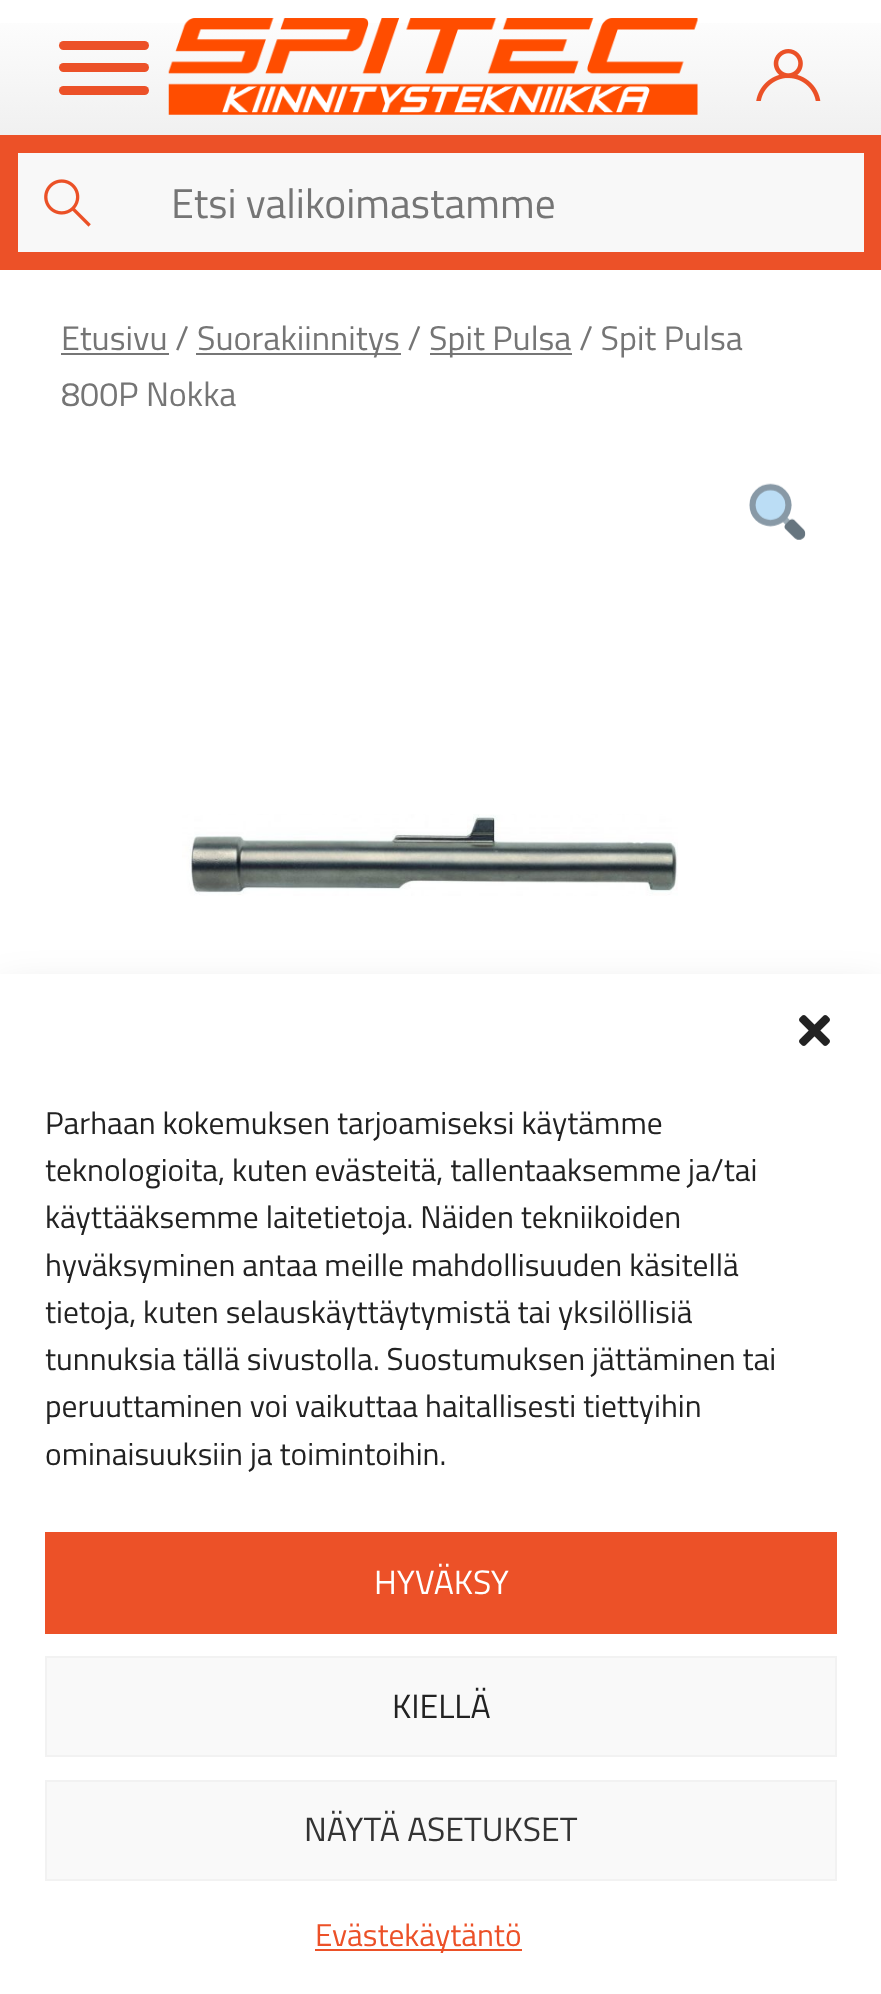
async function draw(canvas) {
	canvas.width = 881;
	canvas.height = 1994;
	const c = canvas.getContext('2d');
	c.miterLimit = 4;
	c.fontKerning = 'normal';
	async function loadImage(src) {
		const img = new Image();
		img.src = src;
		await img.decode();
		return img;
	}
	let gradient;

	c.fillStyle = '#fff';
	c.fillRect(0, 0, 881, 1994);
	gradient = c.createLinearGradient(441, 0, 441, 135);
	gradient.addColorStop(0, '#fff');
	gradient.addColorStop(1, '#f0f0f0');
	c.fillStyle = gradient;
	c.fillRect(0, 23, 881, 112);
	c.fillStyle = '#ec5128';
	c.beginPath();
	c.roundRect(59, 41, 90, 9, 4.5);
	c.fill();
	c.beginPath();
	c.roundRect(59, 63, 90, 9, 4.5);
	c.fill();
	c.beginPath();
	c.roundRect(59, 86, 90, 9, 4.5);
	c.fill();
	c.drawImage(await loadImage('img1.png'), 168, 18, 530, 97);
	c.drawImage(await loadImage('img2.png'), 756, 49, 65, 52);
	c.fillRect(0, 135, 881, 135);
	c.fillStyle = '#f8f8f8';
	c.fillRect(18, 153, 846, 99);
	c.drawImage(await loadImage('img3.png'), 44, 179, 47, 48);
	c.font = '41.5px Titillium Web';
	c.fillStyle = '#757575';
	c.fillText('Etsi valikoimastamme', 171, 218);
	c.font = '34.1px Titillium Web';
	c.fillText('Etusivu /', 61, 350);
	c.fillStyle = '#767676';
	c.fillRect(61, 353, 108, 2);
	c.fillRect(196, 353, 205, 2);
	c.fillStyle = '#757575';
	c.fillText('Suorakiinnitys /', 197, 350);
	c.fillStyle = '#767676';
	c.fillRect(430, 353, 142, 2);
	c.fillStyle = '#757575';
	c.fillText('Spit Pulsa / Spit Pulsa', 429, 350);
	c.fillText('800P Nokka', 61, 406);
	c.drawImage(await loadImage('img4.png'), 749, 483, 57, 57);
	c.drawImage(await loadImage('img5.png'), 182, 814, 496, 82);
	c.fillStyle = '#00000030';
	c.filter = 'blur(22.5px)';
	c.beginPath();
	c.rect(0, 997, 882, 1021);
	c.fill();
	c.filter = 'none';
	c.fillStyle = '#fff';
	c.fillRect(0, 974, 881, 1020);
	c.drawImage(await loadImage('img6.png'), 799, 1015, 31, 31);
	c.font = '31.5px Titillium Web';
	c.fillStyle = '#222';
	for (const [text, x, y] of [
		['Parhaan kokemuksen tarjoamiseksi käytämme', 45, 1134],
		['teknologioita, kuten evästeitä, tallentaaksemme ja/tai', 45, 1181],
		['käyttääksemme laitetietoja. Näiden tekniikoiden', 45, 1228],
		['hyväksyminen antaa meille mahdollisuuden käsitellä', 45, 1276],
		['tietoja, kuten selauskäyttäytymistä tai yksilöllisiä', 45, 1323],
		['tunnuksia tällä sivustolla. Suostumuksen jättäminen tai', 45, 1370],
		['peruuttaminen voi vaikuttaa haitallisesti tiettyihin', 45, 1417],
		['ominaisuuksiin ja toimintoihin.', 45, 1465],
	]) {
		c.fillText(text, x, y);
	}
	c.fillStyle = '#ec5128';
	c.fillRect(45, 1532, 792, 102);
	c.font = '33.75px Titillium Web';
	c.fillStyle = '#fff';
	c.fillText('HYVÄKSY', 374, 1594);
	c.fillStyle = '#f9f9f9';
	c.beginPath();
	c.rect(46, 1657, 790, 99);
	c.fill();
	c.strokeStyle = '#f2f2f2';
	c.lineWidth = 2;
	c.stroke();
	c.fillStyle = '#222';
	c.fillText('KIELLÄ', 392, 1718);
	c.fillStyle = '#f9f9f9';
	c.beginPath();
	c.rect(46, 1781, 790, 99);
	c.fill();
	c.stroke();
	c.fillStyle = '#333';
	c.fillText('NÄYTÄ ASETUKSET', 304, 1841);
	c.fillStyle = '#ec5128';
	c.fillRect(315, 1949, 207, 2);
	c.font = '31.5px Titillium Web';
	c.fillText('Evästekäytäntö', 315, 1946);
}

draw(document.querySelector('canvas'));
